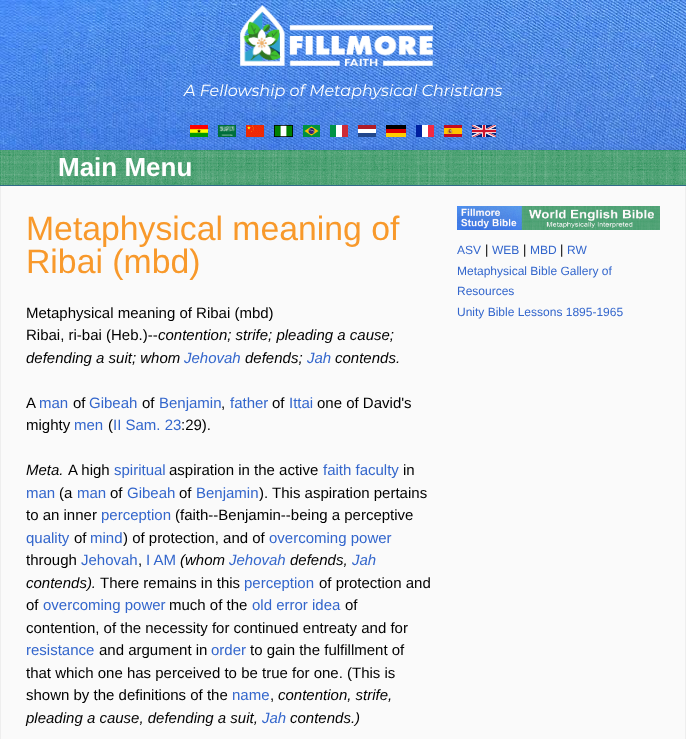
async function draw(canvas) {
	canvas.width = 686;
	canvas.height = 739;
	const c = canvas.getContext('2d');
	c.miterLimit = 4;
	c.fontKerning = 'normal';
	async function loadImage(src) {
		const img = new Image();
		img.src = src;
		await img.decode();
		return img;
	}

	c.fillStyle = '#fff';
	c.fillRect(0, 0, 686, 739);
	c.drawImage(await loadImage('img1.png'), 0, 0, 686, 150);
	c.drawImage(await loadImage('img2.png'), 240, 5, 193, 61);
	c.font = 'italic 16px Montserrat';
	c.fillText('A Fellowship of Metaphysical Christians', 184, 96);
	c.drawImage(await loadImage('img3.png'), 190, 125, 18, 12);
	c.drawImage(await loadImage('img4.png'), 218, 125, 18, 12);
	c.drawImage(await loadImage('img5.png'), 246, 125, 18, 12);
	c.drawImage(await loadImage('img6.png'), 274, 125, 19, 12);
	c.drawImage(await loadImage('img7.png'), 303, 125, 17, 12);
	c.drawImage(await loadImage('img8.png'), 330, 125, 18, 12);
	c.drawImage(await loadImage('img9.png'), 358, 125, 18, 12);
	c.drawImage(await loadImage('img10.png'), 386, 125, 20, 12);
	c.drawImage(await loadImage('img11.png'), 416, 125, 18, 12);
	c.drawImage(await loadImage('img12.png'), 444, 125, 18, 12);
	c.drawImage(await loadImage('img13.png'), 472, 125, 24, 12);
	c.fillStyle = '#00000040';
	c.filter = 'blur(5px)';
	c.beginPath();
	c.rect(0, 155, 686, 36);
	c.fill();
	c.filter = 'none';
	c.drawImage(await loadImage('img14.png'), 0, 150, 686, 35);
	c.fillStyle = '#306b87';
	c.fillRect(0, 185, 686, 1);
	c.font = 'bold 26px Liberation Sans';
	c.fillStyle = '#fff';
	c.fillText('Main Menu', 58, 176);
	for (const [x, y, w, h, color] of [
		[1, 186, 684, 553, '#fafafa'],
		[685, 186, 1, 553, '#eee'],
		[0, 186, 1, 553, '#eee'],
	]) {
		c.fillStyle = color;
		c.fillRect(x, y, w, h);
	}
	c.font = '33.75px Liberation Sans';
	c.fillStyle = '#f8992b';
	c.fillText('Metaphysical meaning of', 26, 240);
	c.fillText('Ribai (mbd)', 26, 273);
	c.font = '15px Liberation Sans';
	c.fillStyle = '#000';
	c.fillText('Metaphysical meaning of Ribai (mbd)', 26, 318);
	c.fillText('Ribai, ri-bai (Heb.)--', 26, 340);
	c.font = 'italic 15px Liberation Sans';
	c.fillText('contention; strife; pleading a cause;', 158, 340);
	c.fillText('defending a suit; whom', 26, 363);
	c.fillStyle = '#36c';
	c.fillText('Jehovah', 184, 363);
	c.fillStyle = '#000';
	c.fillText('defends;', 245, 363);
	c.fillStyle = '#36c';
	c.fillText('Jah', 307, 363);
	c.fillStyle = '#000';
	c.fillText('contends.', 335, 363);
	c.font = '15px Liberation Sans';
	c.fillText('A', 26, 408);
	c.fillStyle = '#36c';
	c.fillText('man', 39, 408);
	c.fillStyle = '#000';
	c.fillText('of', 73, 408);
	c.fillStyle = '#36c';
	c.fillText('Gibeah', 89, 408);
	c.fillStyle = '#000';
	c.fillText('of', 142, 408);
	c.fillStyle = '#36c';
	c.fillText('Benjamin', 159, 408);
	c.fillStyle = '#000';
	c.fillText(',', 221, 408);
	c.fillStyle = '#36c';
	c.fillText('father', 230, 408);
	c.fillStyle = '#000';
	c.fillText('of', 272, 408);
	c.fillStyle = '#36c';
	c.fillText('Ittai', 289, 408);
	c.fillStyle = '#000';
	c.fillText('one of David\'s', 317, 408);
	c.fillText('mighty', 26, 430);
	c.fillStyle = '#36c';
	c.fillText('men', 74, 430);
	c.fillStyle = '#000';
	c.fillText('(', 108, 430);
	c.fillStyle = '#36c';
	c.fillText('II Sam. 23', 113, 430);
	c.fillStyle = '#000';
	c.fillText(':29).', 181, 430);
	c.font = 'italic 15px Liberation Sans';
	c.fillText('Meta.', 26, 475);
	c.font = '15px Liberation Sans';
	c.fillText('A high', 68, 475);
	c.fillStyle = '#36c';
	c.fillText('spiritual', 114, 475);
	c.fillStyle = '#000';
	c.fillText('aspiration in the active', 169, 475);
	c.fillStyle = '#36c';
	c.fillText('faith faculty', 323, 475);
	c.fillStyle = '#000';
	c.fillText('in', 403, 475);
	c.fillStyle = '#36c';
	c.fillText('man', 26, 498);
	c.fillStyle = '#000';
	c.fillText('(a', 59, 498);
	c.fillStyle = '#36c';
	c.fillText('man', 77, 498);
	c.fillStyle = '#000';
	c.fillText('of', 110, 498);
	c.fillStyle = '#36c';
	c.fillText('Gibeah', 127, 498);
	c.fillStyle = '#000';
	c.fillText('of', 179, 498);
	c.fillStyle = '#36c';
	c.fillText('Benjamin', 196, 498);
	c.fillStyle = '#000';
	c.fillText('). This aspiration pertains', 259, 498);
	c.fillText('to an inner', 26, 520);
	c.fillStyle = '#36c';
	c.fillText('perception', 101, 520);
	c.fillStyle = '#000';
	c.fillText('(faith--Benjamin--being a perceptive', 175, 520);
	c.fillStyle = '#36c';
	c.fillText('quality', 26, 543);
	c.fillStyle = '#000';
	c.fillText('of', 74, 543);
	c.fillStyle = '#36c';
	c.fillText('mind', 90, 543);
	c.fillStyle = '#000';
	c.fillText(') of protection, and of', 123, 543);
	c.fillStyle = '#36c';
	c.fillText('overcoming power', 269, 543);
	c.fillStyle = '#000';
	c.fillText('through', 26, 565);
	c.fillStyle = '#36c';
	c.fillText('Jehovah', 81, 565);
	c.fillStyle = '#000';
	c.fillText(',', 138, 565);
	c.fillStyle = '#36c';
	c.fillText('I AM', 146, 565);
	c.font = 'italic 15px Liberation Sans';
	c.fillStyle = '#000';
	c.fillText('(whom', 180, 565);
	c.fillStyle = '#36c';
	c.fillText('Jehovah', 229, 565);
	c.fillStyle = '#000';
	c.fillText('defends,', 290, 565);
	c.fillStyle = '#36c';
	c.fillText('Jah', 352, 565);
	c.fillStyle = '#000';
	c.fillText('contends).', 26, 588);
	c.font = '15px Liberation Sans';
	c.fillText('There remains in this', 100, 588);
	c.fillStyle = '#36c';
	c.fillText('perception', 244, 588);
	c.fillStyle = '#000';
	c.fillText('of protection and', 319, 588);
	c.fillText('of', 26, 610);
	c.fillStyle = '#36c';
	c.fillText('overcoming power', 43, 610);
	c.fillStyle = '#000';
	c.fillText('much of the', 169, 610);
	c.fillStyle = '#36c';
	c.fillText('old error idea', 252, 610);
	c.fillStyle = '#000';
	c.fillText('of', 345, 610);
	c.fillText('contention, of the necessity for continued entreaty and for', 26, 633);
	c.fillStyle = '#36c';
	c.fillText('resistance', 26, 655);
	c.fillStyle = '#000';
	c.fillText('and argument in', 99, 655);
	c.fillStyle = '#36c';
	c.fillText('order', 211, 655);
	c.fillStyle = '#000';
	for (const [text, x, y] of [
		['to gain the fulfillment of', 250, 655],
		['that which one has perceived to be true for one. (This is', 26, 678],
		['shown by the definitions of the', 26, 700],
	]) {
		c.fillText(text, x, y);
	}
	c.fillStyle = '#36c';
	c.fillText('name', 232, 700);
	c.fillStyle = '#000';
	c.fillText(',', 270, 700);
	c.font = 'italic 15px Liberation Sans';
	c.fillText('contention, strife,', 278, 700);
	c.fillText('pleading a cause, defending a suit,', 26, 723);
	c.fillStyle = '#36c';
	c.fillText('Jah', 262, 723);
	c.fillStyle = '#000';
	c.fillText('contends.)', 290, 723);
	c.drawImage(await loadImage('img15.png'), 457, 206, 203, 24);
	c.font = '12px Liberation Sans';
	c.fillStyle = '#36c';
	c.fillText('ASV', 457, 254);
	c.font = '13px Liberation Sans';
	c.fillStyle = '#000';
	c.fillText('|', 485, 254);
	c.font = '12px Liberation Sans';
	c.fillStyle = '#36c';
	c.fillText('WEB', 492, 254);
	c.font = '13px Liberation Sans';
	c.fillStyle = '#000';
	c.fillText('|', 523, 254);
	c.font = '12px Liberation Sans';
	c.fillStyle = '#36c';
	c.fillText('MBD', 530, 254);
	c.font = '13px Liberation Sans';
	c.fillStyle = '#000';
	c.fillText('|', 560, 254);
	c.font = '12px Liberation Sans';
	c.fillStyle = '#36c';
	for (const [text, x, y] of [
		['RW', 567, 254],
		['Metaphysical Bible Gallery of', 457, 275],
		['Resources', 457, 295],
		['Unity Bible Lessons 1895-1965', 457, 316],
	]) {
		c.fillText(text, x, y);
	}
}

draw(document.querySelector('canvas'));
